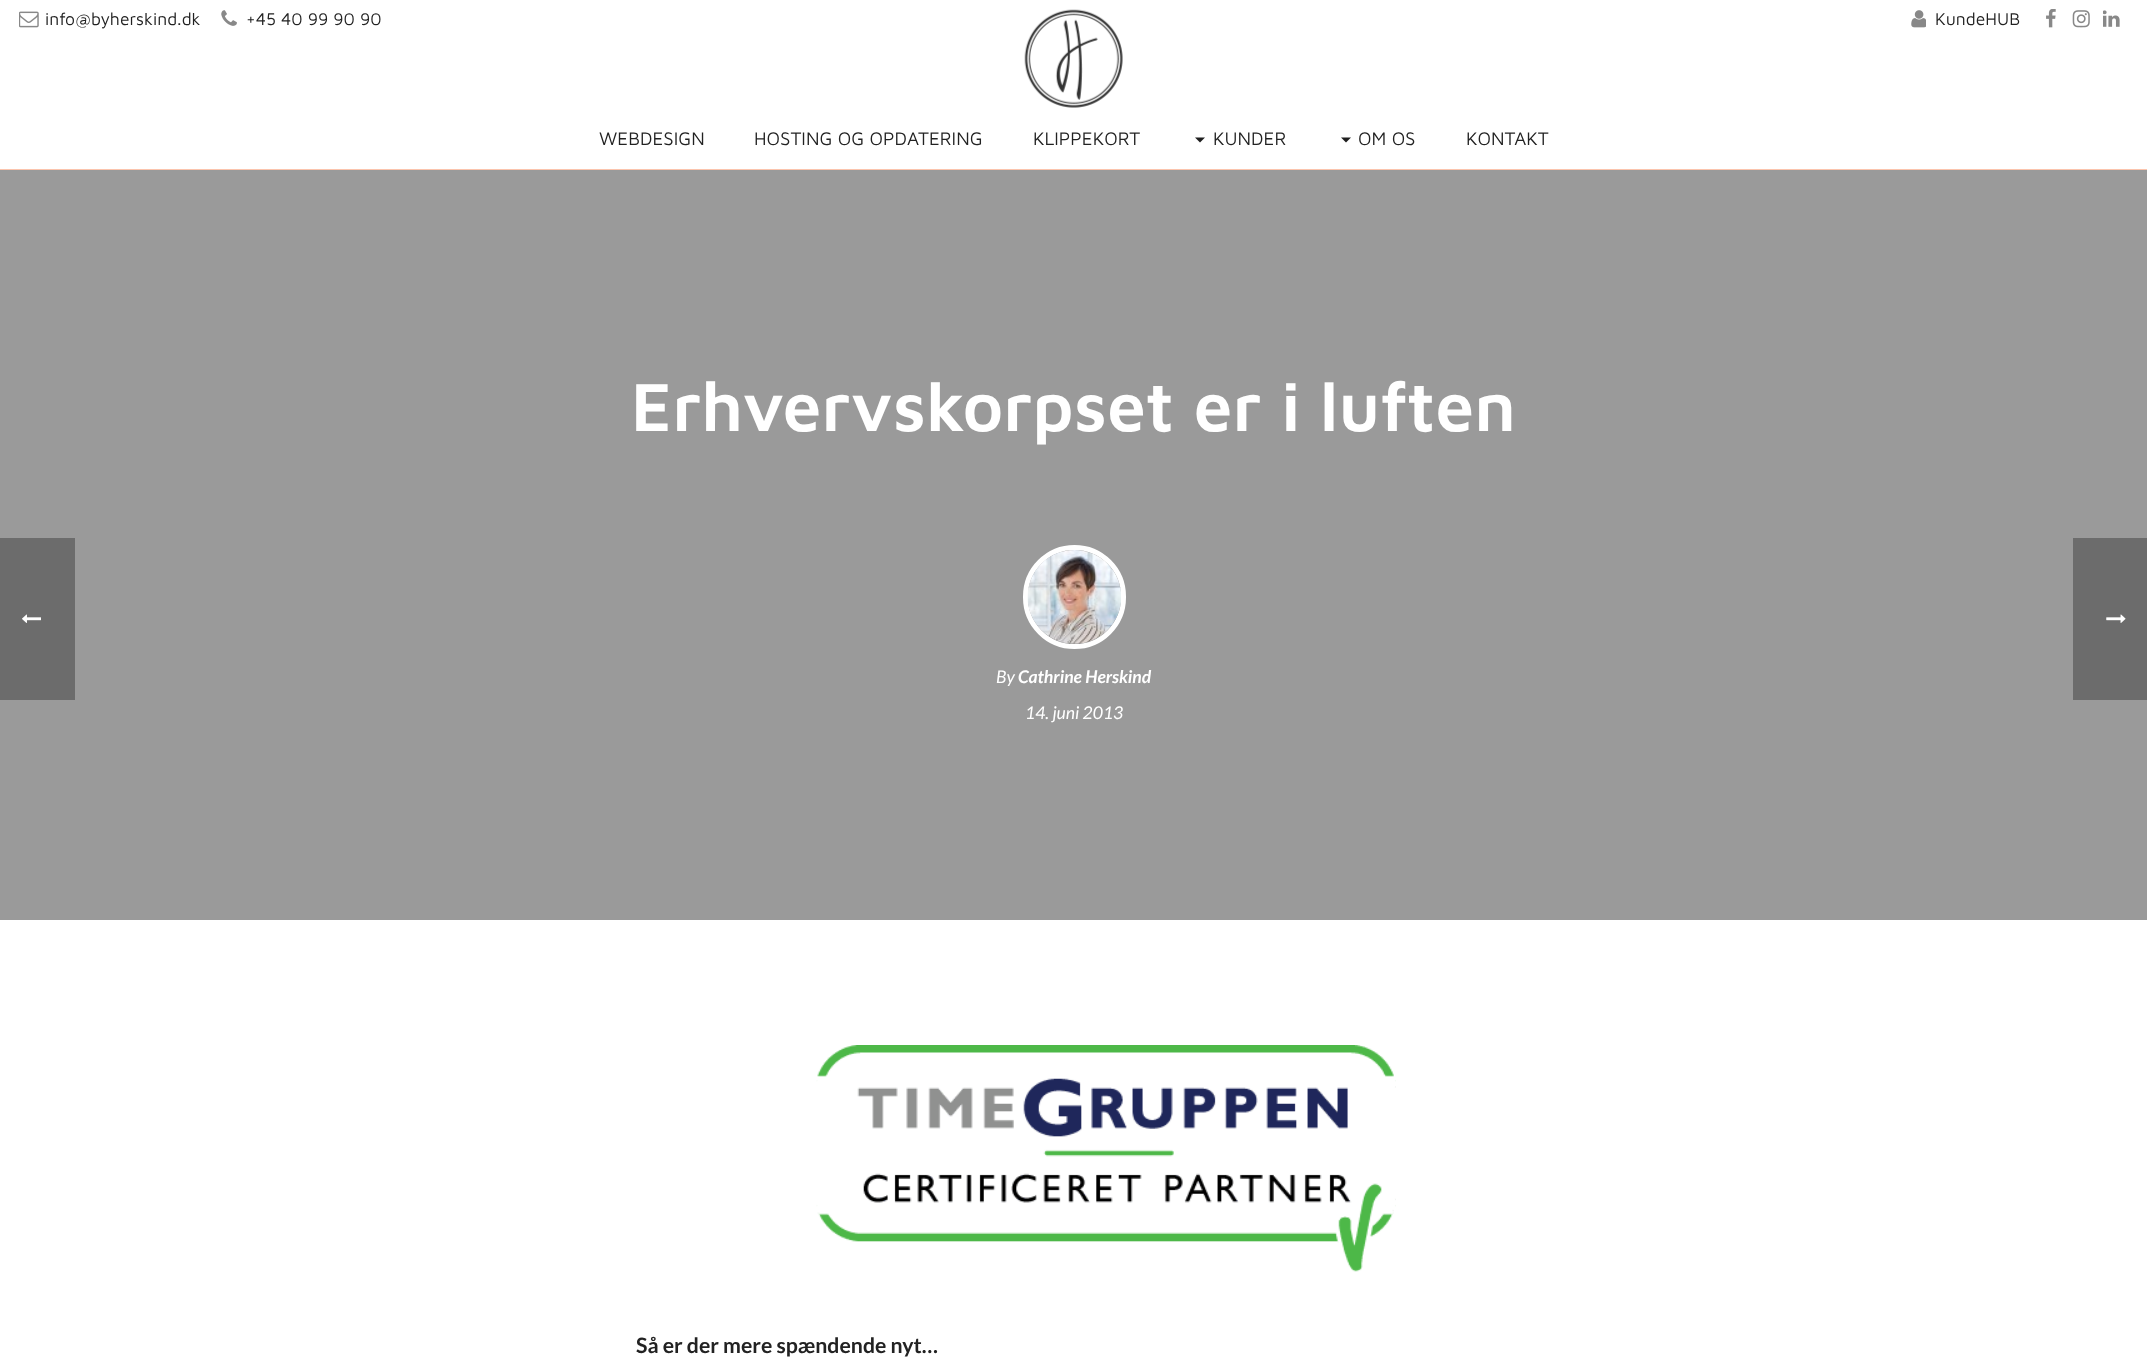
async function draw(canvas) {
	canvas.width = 2147;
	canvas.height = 1361;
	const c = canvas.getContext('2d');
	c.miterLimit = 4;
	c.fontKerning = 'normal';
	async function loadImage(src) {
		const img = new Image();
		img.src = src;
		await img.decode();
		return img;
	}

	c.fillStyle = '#fff';
	c.fillRect(0, 0, 2147, 1361);
	c.fillStyle = '#9a9a9a';
	c.fillRect(0, 170, 2147, 750);
	c.fillStyle = '#6c6c6c';
	c.fillRect(0, 538, 75, 162);
	c.drawImage(await loadImage('img1.png'), 22, 614, 19, 9);
	c.drawImage(await loadImage('img2.png'), 19, 11, 20, 17);
	c.font = '17.5px Maven Pro';
	c.fillStyle = '#222';
	c.fillText('info@byherskind.dk', 45, 25);
	c.drawImage(await loadImage('img3.png'), 221, 10, 16, 16);
	c.fillText('+45 40 99 90 90', 246, 25);
	c.drawImage(await loadImage('img4.png'), 1024, 9, 99, 99);
	c.drawImage(await loadImage('img5.png'), 1911, 10, 15, 18);
	c.fillText('KundeHUB', 1935, 25);
	c.drawImage(await loadImage('img6.png'), 2046, 9, 10, 19);
	c.drawImage(await loadImage('img7.png'), 2072, 10, 18, 18);
	c.drawImage(await loadImage('img8.png'), 2103, 10, 17, 17);
	c.fillStyle = '#fbc4ad';
	c.fillRect(0, 169, 2147, 1);
	c.font = '18.75px Maven Pro';
	c.fillStyle = '#222';
	for (const [text, x, y] of [
		['WEBDESIGN', 599, 145],
		['HOSTING OG OPDATERING', 754, 145],
		['KLIPPEKORT', 1033, 145],
	]) {
		c.fillText(text, x, y);
	}
	c.fillStyle = '#1f1f1f';
	c.beginPath();
	c.moveTo(1195, 137.5);
	c.lineTo(1200, 142.5);
	c.lineTo(1205, 137.5);
	c.closePath();
	c.fill();
	c.fillStyle = '#222';
	c.fillText('KUNDER', 1213, 145);
	c.fillStyle = '#1f1f1f';
	c.beginPath();
	c.moveTo(1341, 137.5);
	c.lineTo(1346, 142.5);
	c.lineTo(1351, 137.5);
	c.closePath();
	c.fill();
	c.fillStyle = '#222';
	c.fillText('OM OS', 1358, 145);
	c.fillText('KONTAKT', 1466, 145);
	c.font = '600 70px Maven Pro';
	c.fillStyle = '#fff';
	c.fillText('Erhvervskorpset er i luften', 631, 431);
	c.beginPath();
	c.roundRect(1025.5, 547.5, 98, 99, 49);
	c.strokeStyle = '#fff';
	c.lineWidth = 5;
	c.stroke();
	c.drawImage(await loadImage('img9.png'), 1027, 550, 94, 94);
	c.font = 'italic 17.5px Lato';
	c.fillText('By', 996, 683);
	c.font = 'italic bold 17.5px Lato';
	c.fillText('Cathrine Herskind', 1018, 683);
	c.font = 'italic 17.5px Lato';
	c.fillText('14. juni 2013', 1025, 719);
	c.drawImage(await loadImage('img10.png'), 816, 1045, 580, 227);
	c.font = 'bold 21.25px Lato';
	c.fillStyle = '#222';
	c.fillText('Så er der mere spændende nyt…', 636, 1353);
	c.fillStyle = '#6c6c6c';
	c.fillRect(2073, 538, 74, 162);
	c.drawImage(await loadImage('img11.png'), 2106, 614, 20, 9);
}

draw(document.querySelector('canvas'));
